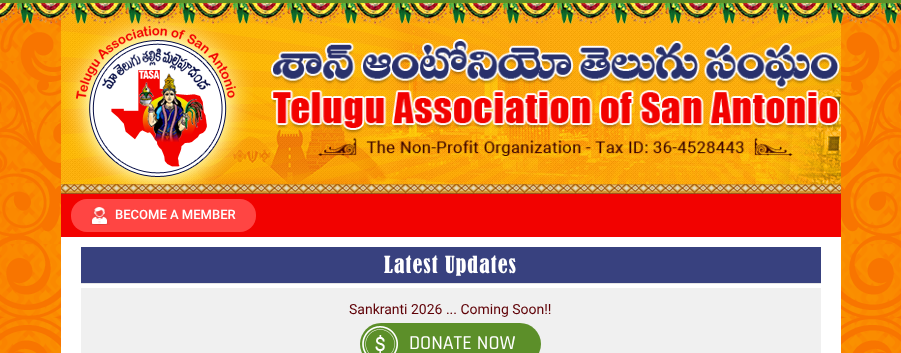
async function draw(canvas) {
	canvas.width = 901;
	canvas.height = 353;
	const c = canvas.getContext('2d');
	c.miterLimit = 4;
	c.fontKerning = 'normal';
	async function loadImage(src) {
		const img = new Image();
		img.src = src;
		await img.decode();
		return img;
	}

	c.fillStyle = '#fff';
	c.fillRect(0, 0, 901, 353);
	c.drawImage(await loadImage('img1.png'), 0, 3, 901, 350);
	c.drawImage(await loadImage('img2.png'), 0, 3, 901, 350);
	c.fillStyle = '#5c8f29';
	c.fillRect(0, 0, 901, 3);
	c.drawImage(await loadImage('img4.png'), 61, 4, 780, 180);
	c.drawImage(await loadImage('img6.png'), 61, 9, 192, 175);
	c.drawImage(await loadImage('img3.png'), 0, 3, 901, 21);
	c.drawImage(await loadImage('img5.png'), 61, 184, 780, 10);
	c.drawImage(await loadImage('img7.png'), 271, 39, 569, 117);
	c.fillStyle = '#f20200';
	c.fillRect(61, 194, 780, 43);
	c.fillStyle = '#ff4543';
	c.beginPath();
	c.roundRect(71, 199, 185, 33, 16);
	c.fill();
	c.drawImage(await loadImage('img8.png'), 90, 207, 20, 18);
	c.font = '500 13px Roboto';
	c.fillStyle = '#fff';
	c.fillText('BECOME A MEMBER', 115, 219);
	c.fillRect(61, 237, 780, 116);
	c.fillStyle = '#38417f';
	c.fillRect(81, 247, 740, 36);
	c.letterSpacing = '1px';
	c.font = '22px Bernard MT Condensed';
	c.fillStyle = '#fff';
	c.fillText('Latest Updates', 384, 273);
	c.fillStyle = '#e5e5e5';
	c.fillRect(81, 283, 740, 1);
	c.fillStyle = '#f0f0f0';
	c.fillRect(81, 288, 740, 65);
	c.letterSpacing = '0px';
	c.font = '14px Roboto';
	c.fillStyle = '#5f0006';
	c.fillText('Sankranti 2026 ... Coming Soon!!', 349, 314);
	c.fillStyle = '#5c8f29';
	c.beginPath();
	c.roundRect(360, 323, 181, 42, 21);
	c.fill();
	c.drawImage(await loadImage('img9.png'), 362, 326, 36, 27);
	c.font = '500 20px Rajdhani';
	c.fillStyle = '#fff';
	c.fillText('DONATE NOW', 409, 349);
}

draw(document.querySelector('canvas'));
